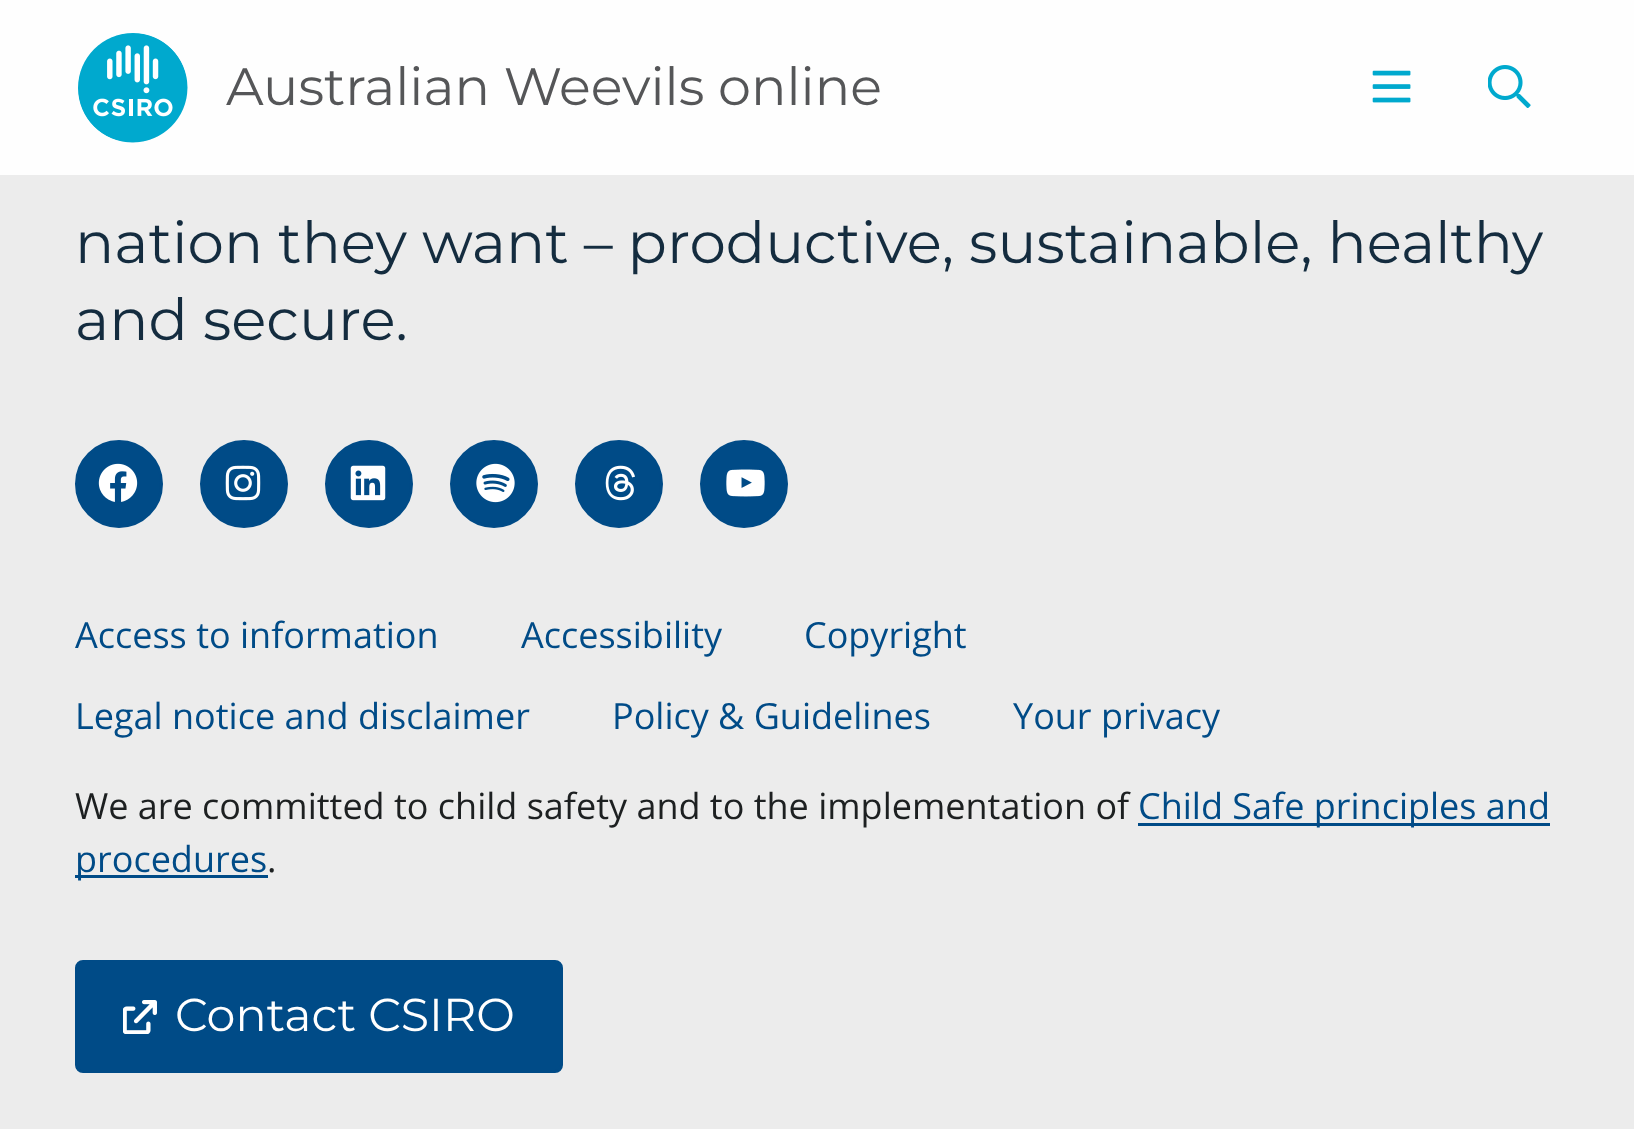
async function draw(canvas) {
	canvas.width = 1634;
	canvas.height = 1129;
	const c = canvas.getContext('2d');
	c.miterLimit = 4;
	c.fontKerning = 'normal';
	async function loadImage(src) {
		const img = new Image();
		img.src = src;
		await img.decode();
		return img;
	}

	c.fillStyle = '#ececec';
	c.fillRect(0, 0, 1634, 1129);
	c.fillStyle = '#fefefe';
	c.fillRect(0, 0, 1634, 175);
	c.drawImage(await loadImage('img1.png'), 78, 33, 110, 110);
	c.font = '52.5px Montserrat';
	c.fillStyle = '#555658';
	c.fillText('Australian Weevils online', 226, 105);
	c.drawImage(await loadImage('img2.png'), 1372, 70, 39, 33);
	c.drawImage(await loadImage('img3.png'), 1488, 65, 43, 43);
	c.wordSpacing = '-0.25px';
	c.font = '58px Montserrat';
	c.fillStyle = '#142c3f';
	c.fillText('nation they want – productive, sustainable, healthy', 75, 263);
	c.wordSpacing = '0px';
	c.fillText('and secure.', 75, 340);
	c.fillStyle = '#004b87';
	c.beginPath();
	c.arc(119, 484, 42.5, 0, 2 * Math.PI);
	c.fill();
	c.strokeStyle = '#004b87';
	c.lineWidth = 3;
	c.stroke();
	c.drawImage(await loadImage('img4.png'), 98, 463, 40, 39);
	c.beginPath();
	c.arc(244, 484, 42.5, 0, 2 * Math.PI);
	c.fill();
	c.stroke();
	c.drawImage(await loadImage('img5.png'), 225, 465, 36, 36);
	c.beginPath();
	c.arc(369, 484, 42.5, 0, 2 * Math.PI);
	c.fill();
	c.stroke();
	c.drawImage(await loadImage('img6.png'), 350, 465, 36, 36);
	c.beginPath();
	c.arc(494, 484, 42.5, 0, 2 * Math.PI);
	c.fill();
	c.stroke();
	c.drawImage(await loadImage('img7.png'), 476, 463, 39, 40);
	c.beginPath();
	c.arc(619, 484, 42.5, 0, 2 * Math.PI);
	c.fill();
	c.stroke();
	c.drawImage(await loadImage('img8.png'), 605, 465, 30, 36);
	c.beginPath();
	c.arc(744, 484, 42.5, 0, 2 * Math.PI);
	c.fill();
	c.stroke();
	c.drawImage(await loadImage('img9.png'), 726, 469, 39, 28);
	c.font = '36px Open Sans';
	for (const [text, x, y] of [
		['Access to information', 75, 648],
		['Accessibility', 521, 648],
		['Copyright', 804, 648],
		['Legal notice and disclaimer', 75, 729],
		['Policy & Guidelines', 612, 729],
		['Your privacy', 1013, 729],
	]) {
		c.fillText(text, x, y);
	}
	c.fillStyle = '#1d2021';
	c.fillText('We are committed to child safety and to the implementation of', 75, 819);
	c.fillStyle = '#004b87';
	c.fillRect(1138, 823, 412, 3);
	c.fillText('Child Safe principles and', 1138, 819);
	c.fillRect(75, 875, 193, 3);
	c.fillText('procedures', 75, 872);
	c.fillStyle = '#1d2021';
	c.fillText('.', 267, 872);
	c.fillStyle = '#004b87';
	c.beginPath();
	c.roundRect(76.5, 961.5, 485, 110, 6.5);
	c.fill();
	c.stroke();
	c.drawImage(await loadImage('img10.png'), 123, 1000, 34, 34);
	c.font = '46px Montserrat';
	c.fillStyle = '#fff';
	c.fillText('Contact CSIRO', 175, 1031);
}

draw(document.querySelector('canvas'));
